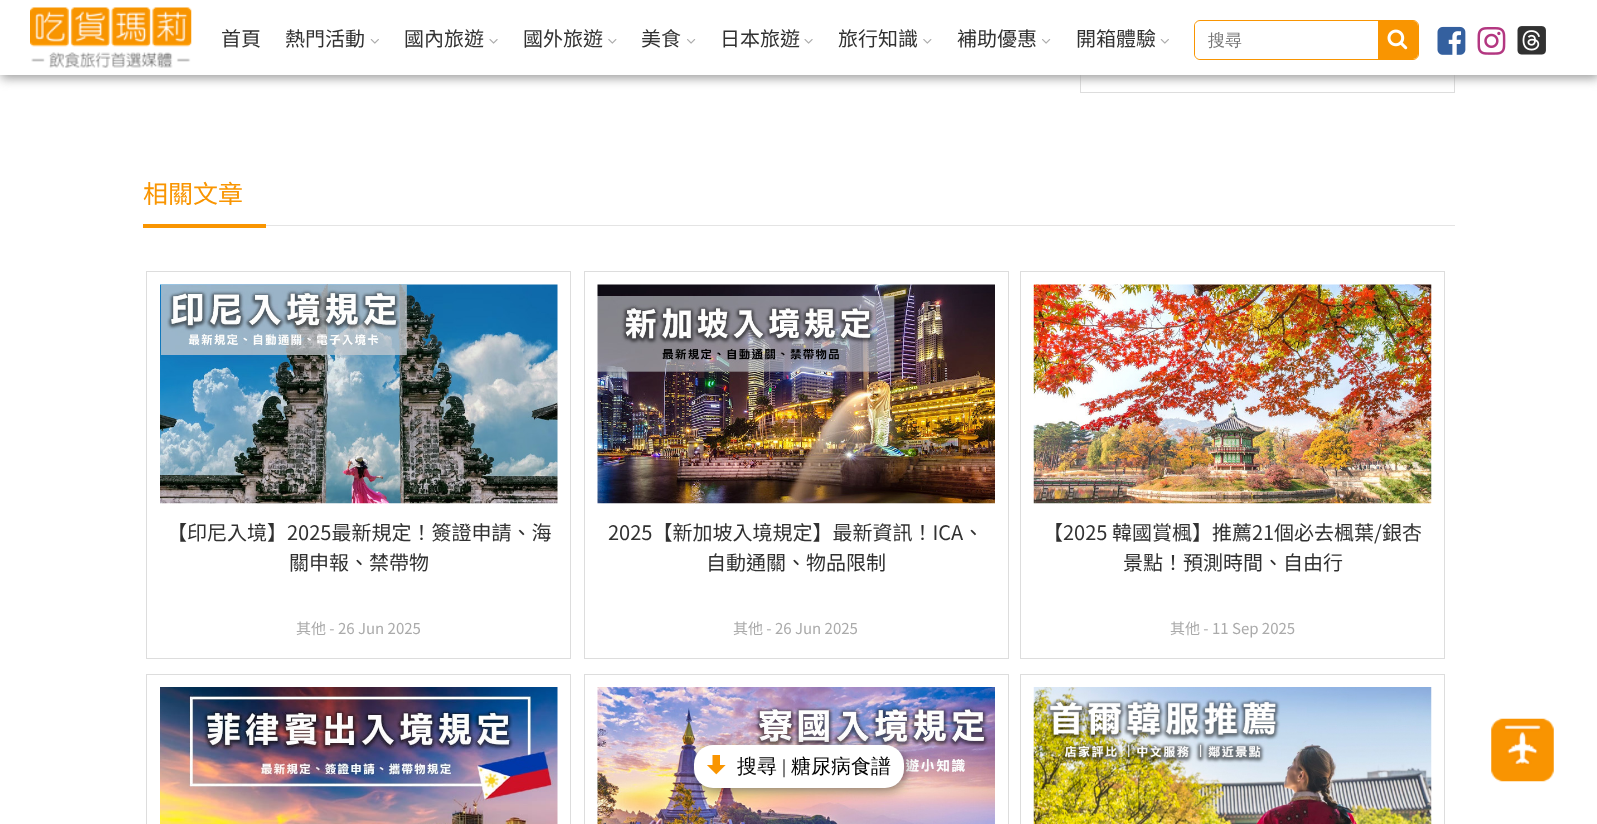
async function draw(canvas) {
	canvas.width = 1597;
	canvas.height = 824;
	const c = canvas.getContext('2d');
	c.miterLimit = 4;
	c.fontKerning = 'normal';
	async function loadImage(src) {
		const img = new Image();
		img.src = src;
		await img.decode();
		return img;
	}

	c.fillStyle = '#fff';
	c.fillRect(0, 0, 1597, 824);
	c.strokeStyle = '#ddd';
	c.strokeRect(1080.5, -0.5, 374, 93);
	c.fillStyle = '#999';
	c.filter = 'blur(5.5px)';
	c.beginPath();
	c.rect(1, 3, 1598, 75);
	c.fill();
	c.filter = 'none';
	c.fillStyle = '#fff';
	c.fillRect(0, 0, 1597, 75);
	c.drawImage(await loadImage('img1.png'), 30, 7, 162, 61);
	c.font = '20px Noto Sans TC';
	c.fillStyle = '#313131';
	c.fillText('首頁', 221, 46);
	c.fillText('熱門活動', 285, 46);
	c.drawImage(await loadImage('img2.png'), 370, 39, 9, 5);
	c.fillText('國內旅遊', 404, 46);
	c.drawImage(await loadImage('img3.png'), 489, 39, 9, 5);
	c.fillText('國外旅遊', 523, 46);
	c.drawImage(await loadImage('img4.png'), 608, 39, 9, 5);
	c.fillText('美食', 641, 46);
	c.drawImage(await loadImage('img5.png'), 687, 39, 9, 5);
	c.fillText('日本旅遊', 720, 46);
	c.drawImage(await loadImage('img3.png'), 804, 39, 9, 5);
	c.fillText('旅行知識', 838, 46);
	c.drawImage(await loadImage('img4.png'), 923, 39, 9, 5);
	c.fillText('補助優惠', 957, 46);
	c.drawImage(await loadImage('img5.png'), 1042, 39, 9, 5);
	c.fillText('開箱體驗', 1076, 46);
	c.drawImage(await loadImage('img2.png'), 1160, 39, 9, 5);
	c.beginPath();
	c.roundRect(1194.5, 20.5, 224, 39, 5.5);
	c.strokeStyle = '#f99501';
	c.stroke();
	c.save();
	c.beginPath();
	c.roundRect(1195, 21, 223, 38, 5);
	c.clip();
	c.fillStyle = '#fff';
	c.beginPath();
	c.roundRect(1195, 23, 178, 36, [0, 0, 0, 5]);
	c.fill();
	c.restore();
	c.font = '500 17px WenQuanYi Zen Hei';
	c.fillStyle = '#757575';
	c.fillText('搜尋', 1208, 46);
	c.fillStyle = '#f99501';
	c.beginPath();
	c.roundRect(1378, 21, 40, 38, [0, 5, 5, 0]);
	c.fill();
	c.drawImage(await loadImage('img6.png'), 1387, 29, 21, 21);
	c.drawImage(await loadImage('img7.png'), 1437, 26, 29, 29);
	c.drawImage(await loadImage('img8.png'), 1477, 27, 29, 28);
	c.drawImage(await loadImage('img9.png'), 1517, 26, 29, 29);
	c.fillStyle = '#e4e4e4';
	c.fillRect(266, 225, 1189, 1);
	c.font = '25px Noto Sans TC';
	c.fillStyle = '#f99501';
	c.fillText('相關文章', 143, 203);
	c.fillRect(143, 224, 123, 4);
	c.strokeStyle = '#ddd';
	c.strokeRect(146.5, 271.5, 424, 387);
	c.drawImage(await loadImage('img10.png'), 160, 284, 398, 220);
	c.font = '20px Noto Sans TC';
	c.fillStyle = '#313131';
	c.fillText('【印尼入境】2025最新規定！簽證申請、海', 167, 540);
	c.fillText('關申報、禁帶物', 289, 570);
	c.font = '15px Noto Sans TC';
	c.fillStyle = '#aaa';
	c.fillText('其他 - 26 Jun 2025', 296, 634);
	c.strokeRect(584.5, 271.5, 424, 387);
	c.drawImage(await loadImage('img11.png'), 597, 284, 398, 220);
	c.font = '20px Noto Sans TC';
	c.fillStyle = '#313131';
	c.fillText('2025【新加坡入境規定】最新資訊！ICA、', 608, 540);
	c.fillText('自動通關、物品限制', 706, 570);
	c.font = '15px Noto Sans TC';
	c.fillStyle = '#aaa';
	c.fillText('其他 - 26 Jun 2025', 733, 634);
	c.strokeRect(1020.5, 271.5, 424, 387);
	c.drawImage(await loadImage('img12.png'), 1033, 284, 399, 220);
	c.font = '20px Noto Sans TC';
	c.fillStyle = '#313131';
	c.fillText('【2025 韓國賞楓】推薦21個必去楓葉/銀杏', 1043, 540);
	c.fillText('景點！預測時間、自由行', 1123, 570);
	c.font = '15px Noto Sans TC';
	c.fillStyle = '#aaa';
	c.fillText('其他 - 11 Sep 2025', 1170, 634);
	c.strokeRect(146.5, 674.5, 424, 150);
	c.drawImage(await loadImage('img13.png'), 160, 687, 398, 137);
	c.strokeRect(584.5, 674.5, 424, 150);
	c.drawImage(await loadImage('img14.png'), 597, 687, 398, 137);
	c.strokeRect(1020.5, 674.5, 424, 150);
	c.drawImage(await loadImage('img15.png'), 1033, 687, 399, 137);
	c.fillStyle = '#00000080';
	c.filter = 'blur(6px)';
	c.beginPath();
	c.roundRect(695, 748, 210, 42, 19);
	c.fill();
	c.filter = 'none';
	c.fillStyle = '#fff';
	c.beginPath();
	c.roundRect(694, 745, 210, 43, 19);
	c.fill();
	c.drawImage(await loadImage('img16.png'), 707, 755, 19, 20);
	c.font = '500 20px WenQuanYi Zen Hei';
	c.fillStyle = '#000';
	c.fillText('搜尋', 737, 773);
	c.font = '20px Liberation Serif';
	c.fillText('|', 782, 773);
	c.font = '500 20px WenQuanYi Zen Hei';
	c.fillText('糖尿病食譜', 791, 773);
	c.drawImage(await loadImage('img17.png'), 1491, 718, 63, 64);
}

draw(document.querySelector('canvas'));
